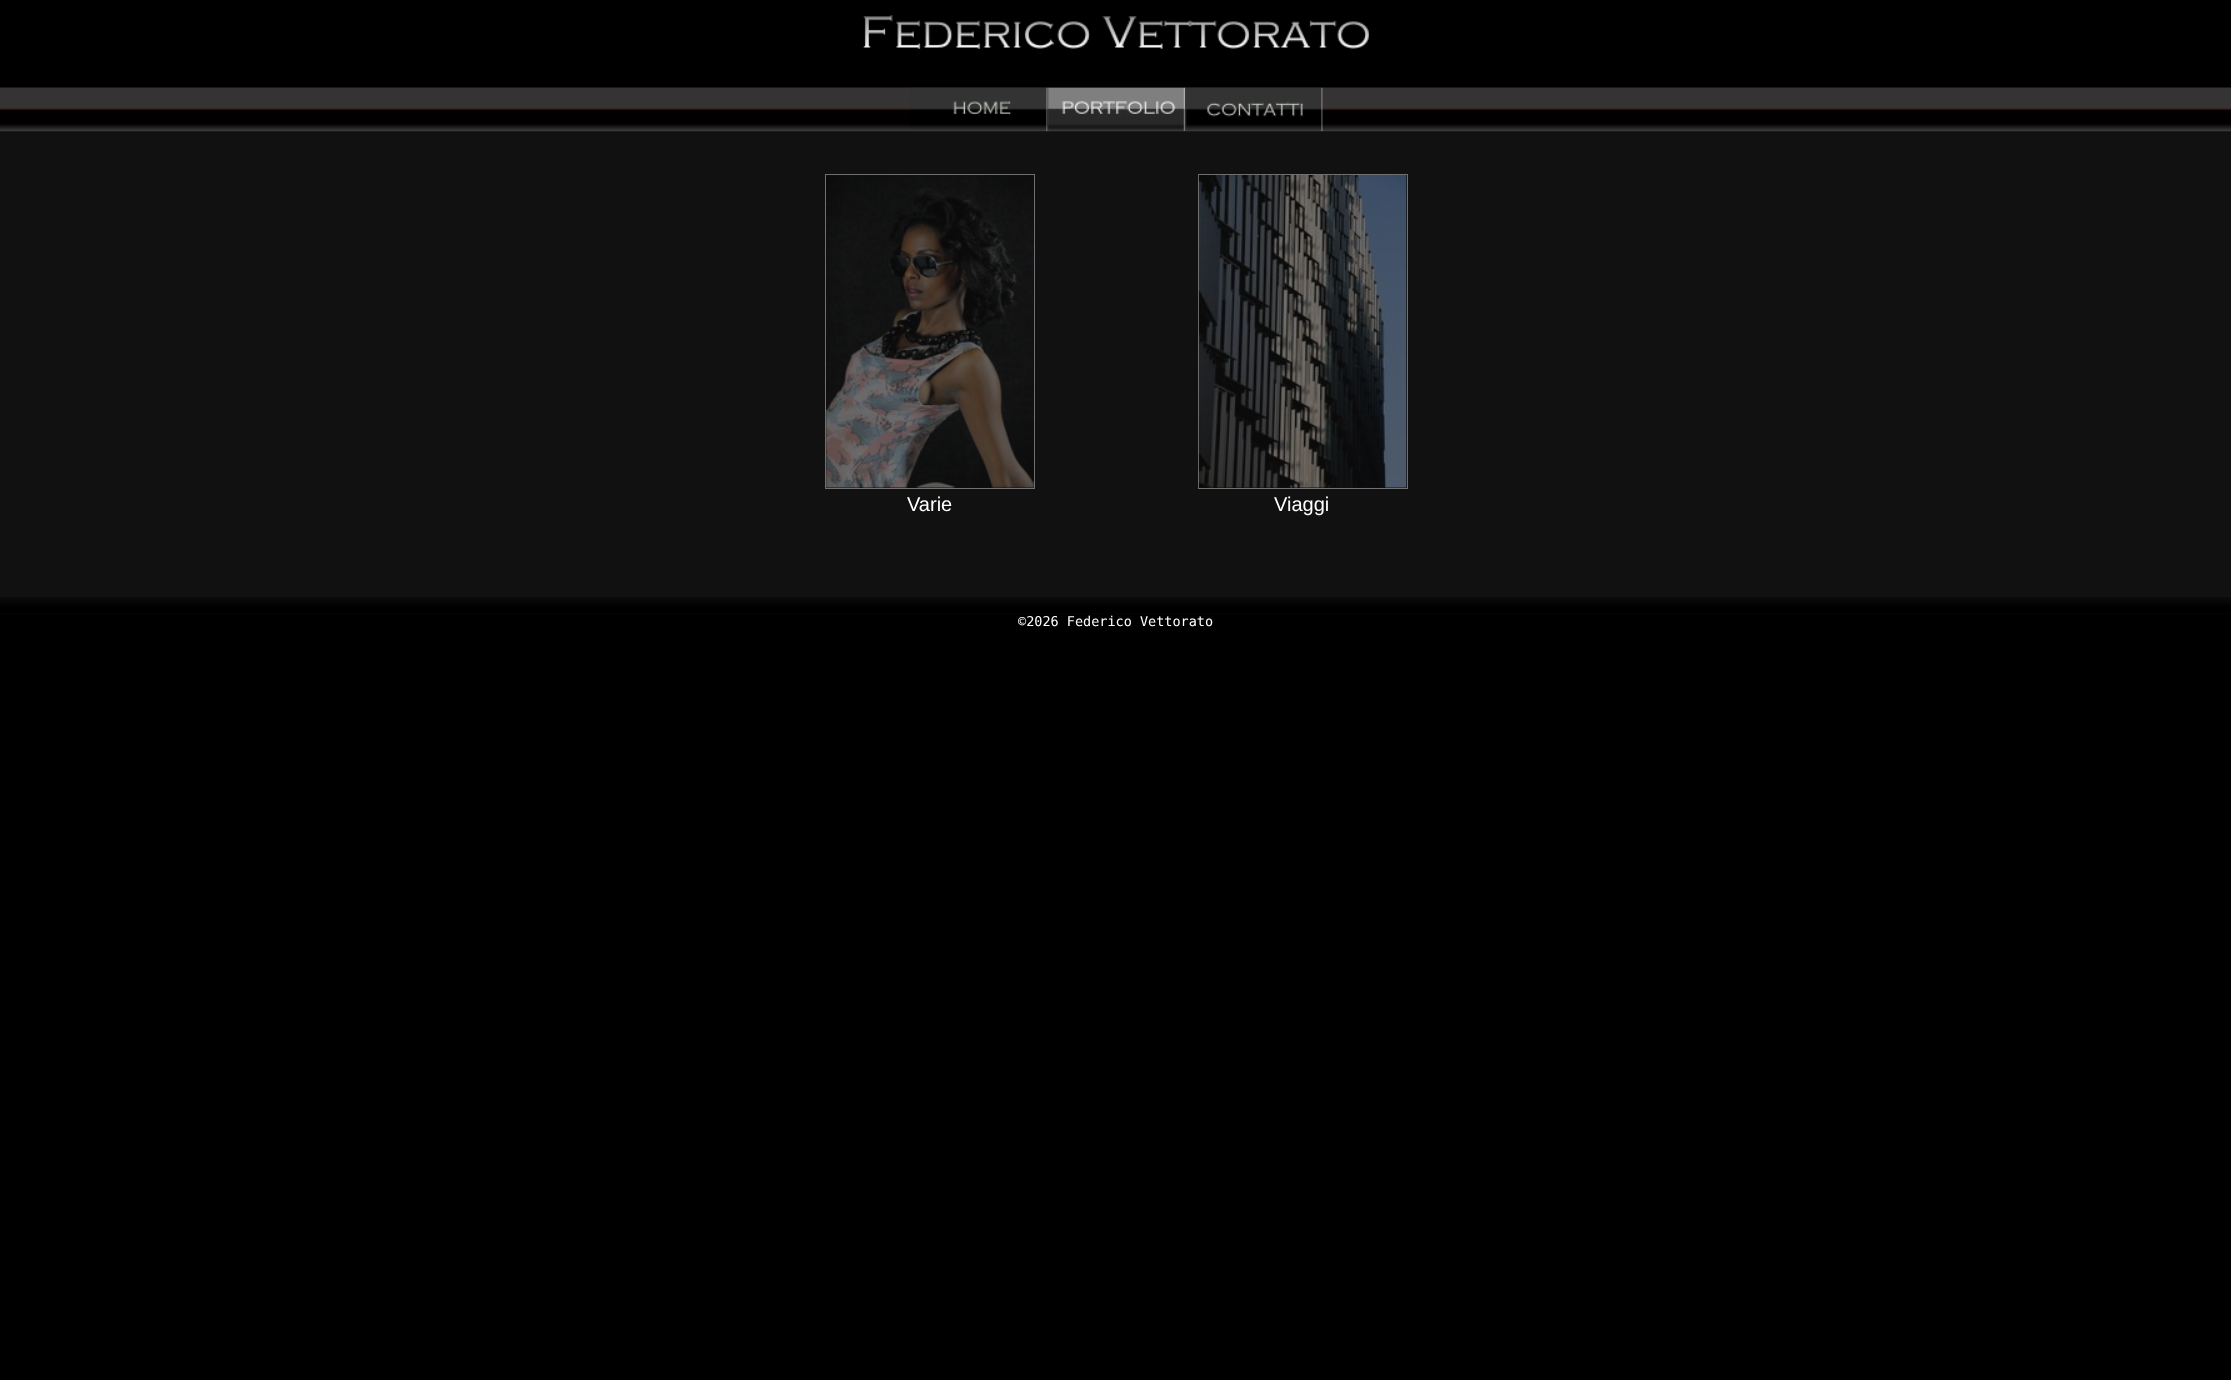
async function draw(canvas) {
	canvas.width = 2231;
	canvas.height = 1380;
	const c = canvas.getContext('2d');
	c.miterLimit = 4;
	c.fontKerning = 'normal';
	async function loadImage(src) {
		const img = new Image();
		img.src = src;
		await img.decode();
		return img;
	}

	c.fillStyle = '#000';
	c.fillRect(0, 0, 2231, 1380);
	c.drawImage(await loadImage('img1.png'), 863, 15, 506, 34);
	c.fillStyle = '#111';
	c.fillRect(0, 131, 2231, 483);
	c.drawImage(await loadImage('img2.png'), 0, 87, 2231, 45);
	c.drawImage(await loadImage('img3.png'), 910, 87, 138, 45);
	c.drawImage(await loadImage('img4.png'), 1047, 87, 138, 45);
	c.drawImage(await loadImage('img5.png'), 1185, 87, 138, 45);
	c.drawImage(await loadImage('img6.png'), 0, 597, 2231, 17);
	c.strokeStyle = '#707070';
	c.strokeRect(825.5, 174.5, 209, 314);
	c.drawImage(await loadImage('img7.png'), 826, 175, 208, 313);
	c.font = '20px Liberation Sans';
	c.fillStyle = '#fff';
	c.fillText('Varie', 907, 511);
	c.strokeRect(1198.5, 174.5, 209, 314);
	c.drawImage(await loadImage('img8.png'), 1198, 175, 209, 313);
	c.fillText('Viaggi', 1274, 511);
	c.font = '13.5px DejaVu Sans Mono';
	c.fillText('©2026 Federico Vettorato', 1018, 626);
}

draw(document.querySelector('canvas'));
